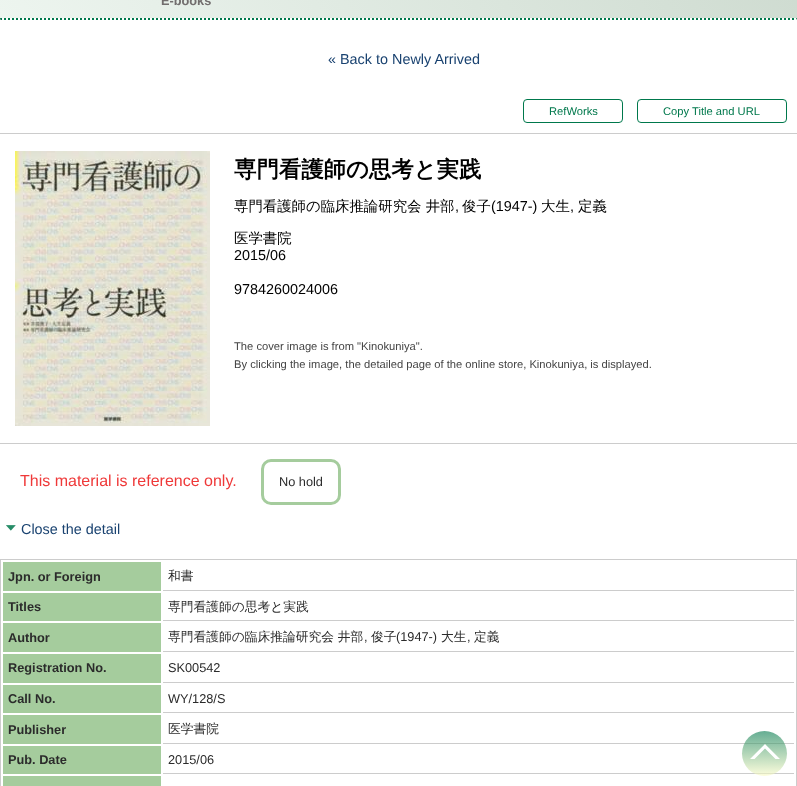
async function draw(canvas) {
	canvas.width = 797;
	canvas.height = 786;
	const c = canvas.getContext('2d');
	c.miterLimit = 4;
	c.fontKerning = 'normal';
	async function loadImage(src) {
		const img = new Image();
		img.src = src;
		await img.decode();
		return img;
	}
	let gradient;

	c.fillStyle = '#fff';
	c.fillRect(0, 0, 797, 786);
	gradient = c.createLinearGradient(85, 165, 712, -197);
	gradient.addColorStop(0, '#edf5ef');
	gradient.addColorStop(1, '#cedbd0');
	c.fillStyle = gradient;
	c.fillRect(0, 0, 797, 18);
	c.font = 'bold 12.75px Liberation Sans';
	c.fillStyle = '#726e6e';
	c.fillText('E-books', 161, 5);
	c.beginPath();
	c.moveTo(0, 19);
	c.lineTo(797, 19);
	c.strokeStyle = '#00784c';
	c.lineWidth = 2;
	c.setLineDash([2, 2]);
	c.stroke();
	c.fillStyle = '#eee';
	c.beginPath();
	c.moveTo(797, 18);
	c.lineTo(797, 20);
	c.lineTo(796, 20);
	c.closePath();
	c.fill();
	c.fillStyle = '#9f9f9f';
	c.beginPath();
	c.moveTo(0, 20);
	c.lineTo(0, 18);
	c.lineTo(1, 20);
	c.closePath();
	c.fill();
	c.font = '14.4px Liberation Sans';
	c.fillStyle = '#194270';
	c.fillText('« Back to Newly Arrived', 328, 64);
	c.beginPath();
	c.roundRect(523.5, 99.5, 99, 23, 3.5);
	c.lineWidth = 1;
	c.setLineDash([]);
	c.stroke();
	c.font = '11.2px Liberation Sans';
	c.fillStyle = '#00784c';
	c.fillText('RefWorks', 549, 115);
	c.beginPath();
	c.roundRect(637.5, 99.5, 149, 23, 3.5);
	c.stroke();
	c.fillText('Copy Title and URL', 663, 115);
	c.fillStyle = '#ccc';
	c.fillRect(0, 133, 797, 1);
	c.fillRect(0, 443, 797, 1);
	c.drawImage(await loadImage('img1.png'), 15, 151, 195, 275);
	c.font = 'bold 22.4px WenQuanYi Zen Hei';
	c.fillStyle = '#000';
	c.fillText('専門看護師の思考と実践', 234, 177);
	c.font = '500 14.4px WenQuanYi Zen Hei';
	c.fillText('専門看護師の臨床推論研究会 井部', 234, 211);
	c.font = '14.4px Liberation Sans';
	c.fillText(',', 455, 211);
	c.font = '500 14.4px WenQuanYi Zen Hei';
	c.fillText('俊子', 462, 211);
	c.font = '14.4px Liberation Sans';
	c.fillText('(1947-)', 491, 211);
	c.font = '500 14.4px WenQuanYi Zen Hei';
	c.fillText('大生', 541, 211);
	c.font = '14.4px Liberation Sans';
	c.fillText(',', 570, 211);
	c.font = '500 14.4px WenQuanYi Zen Hei';
	c.fillText('定義', 578, 211);
	c.fillText('医学書院', 234, 243);
	c.font = '14.4px Liberation Sans';
	c.fillText('2015/06', 234, 260);
	c.fillText('9784260024006', 234, 294);
	c.font = '11.2px Liberation Sans';
	c.fillStyle = '#444';
	c.fillText('The cover image is from "Kinokuniya".', 234, 350);
	c.fillText('By clicking the image, the detailed page of the online store, Kinokuniya, is displayed.', 234, 368);
	c.font = '16px Liberation Sans';
	c.fillStyle = '#ef3939';
	c.fillText('This material is reference only.', 20, 486);
	c.beginPath();
	c.roundRect(262.5, 460.5, 77, 43, 8.5);
	c.strokeStyle = '#a5cc9d';
	c.lineWidth = 3;
	c.stroke();
	c.font = '12.75px Liberation Sans';
	c.fillStyle = '#2b2b2b';
	c.fillText('No hold', 279, 486);
	c.drawImage(await loadImage('img2.png'), 6, 525, 10, 6);
	c.font = '14.4px Liberation Sans';
	c.fillStyle = '#194270';
	c.fillText('Close the detail', 21, 534);
	c.strokeStyle = '#ccc';
	c.lineWidth = 1;
	c.strokeRect(0.5, 559.5, 796, 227);
	c.fillStyle = '#a5cc9d';
	c.fillRect(3, 562, 158, 29);
	c.font = 'bold 12.75px Liberation Sans';
	c.fillStyle = '#2b2b2b';
	c.fillText('Jpn. or Foreign', 8, 581);
	c.fillStyle = '#ccc';
	c.fillRect(163, 590, 631, 1);
	c.font = '500 12.75px WenQuanYi Zen Hei';
	c.fillStyle = '#2b2b2b';
	c.fillText('和書', 168, 580);
	c.fillStyle = '#a5cc9d';
	c.fillRect(3, 593, 158, 28);
	c.font = 'bold 12.75px Liberation Sans';
	c.fillStyle = '#2b2b2b';
	c.fillText('Titles', 8, 611);
	c.fillStyle = '#ccc';
	c.fillRect(163, 620, 631, 1);
	c.font = '500 12.75px WenQuanYi Zen Hei';
	c.fillStyle = '#2b2b2b';
	c.fillText('専門看護師の思考と実践', 168, 611);
	c.fillStyle = '#a5cc9d';
	c.fillRect(3, 623, 158, 29);
	c.font = 'bold 12.75px Liberation Sans';
	c.fillStyle = '#2b2b2b';
	c.fillText('Author', 8, 642);
	c.fillStyle = '#ccc';
	c.fillRect(163, 651, 631, 1);
	c.font = '500 12.75px WenQuanYi Zen Hei';
	c.fillStyle = '#2b2b2b';
	c.fillText('専門看護師の臨床推論研究会 井部', 168, 641);
	c.font = '12.75px Liberation Sans';
	c.fillText(',', 364, 641);
	c.font = '500 12.75px WenQuanYi Zen Hei';
	c.fillText('俊子', 371, 641);
	c.font = '12.75px Liberation Sans';
	c.fillText('(1947-)', 396, 641);
	c.font = '500 12.75px WenQuanYi Zen Hei';
	c.fillText('大生', 441, 641);
	c.font = '12.75px Liberation Sans';
	c.fillText(',', 467, 641);
	c.font = '500 12.75px WenQuanYi Zen Hei';
	c.fillText('定義', 474, 641);
	c.fillStyle = '#a5cc9d';
	c.fillRect(3, 654, 158, 29);
	c.font = 'bold 12.75px Liberation Sans';
	c.fillStyle = '#2b2b2b';
	c.fillText('Registration No.', 8, 672);
	c.fillStyle = '#ccc';
	c.fillRect(163, 682, 631, 1);
	c.font = '12.75px Liberation Sans';
	c.fillStyle = '#2b2b2b';
	c.fillText('SK00542', 168, 672);
	c.fillStyle = '#a5cc9d';
	c.fillRect(3, 685, 158, 28);
	c.font = 'bold 12.75px Liberation Sans';
	c.fillStyle = '#2b2b2b';
	c.fillText('Call No.', 8, 703);
	c.fillStyle = '#ccc';
	c.fillRect(163, 712, 631, 1);
	c.font = '12.75px Liberation Sans';
	c.fillStyle = '#2b2b2b';
	c.fillText('WY/128/S', 168, 703);
	c.fillStyle = '#a5cc9d';
	c.fillRect(3, 715, 158, 29);
	c.font = 'bold 12.75px Liberation Sans';
	c.fillStyle = '#2b2b2b';
	c.fillText('Publisher', 8, 734);
	c.fillStyle = '#ccc';
	c.fillRect(163, 743, 631, 1);
	c.font = '500 12.75px WenQuanYi Zen Hei';
	c.fillStyle = '#2b2b2b';
	c.fillText('医学書院', 168, 733);
	c.fillStyle = '#a5cc9d';
	c.fillRect(3, 746, 158, 28);
	c.font = 'bold 12.75px Liberation Sans';
	c.fillStyle = '#2b2b2b';
	c.fillText('Pub. Date', 8, 764);
	c.fillStyle = '#ccc';
	c.fillRect(163, 773, 631, 1);
	c.font = '12.75px Liberation Sans';
	c.fillStyle = '#2b2b2b';
	c.fillText('2015/06', 168, 764);
	c.fillStyle = '#a5cc9d';
	c.fillRect(3, 776, 158, 10);
	gradient = c.createLinearGradient(765, 731, 765, 776);
	gradient.addColorStop(0, '#00784c99');
	gradient.addColorStop(1, '#fcfcc599');
	c.fillStyle = gradient;
	c.beginPath();
	c.arc(764.5, 753.5, 22.5, 0, 2 * Math.PI);
	c.fill();
	c.fillStyle = '#fff';
	c.beginPath();
	c.moveTo(750, 759);
	c.lineTo(765, 744);
	c.lineTo(765, 748.5);
	c.lineTo(754.5, 759);
	c.closePath();
	c.moveTo(765, 744);
	c.lineTo(780, 759);
	c.lineTo(775.5, 759);
	c.lineTo(765, 748.5);
	c.closePath();
	c.fill();
}

draw(document.querySelector('canvas'));
